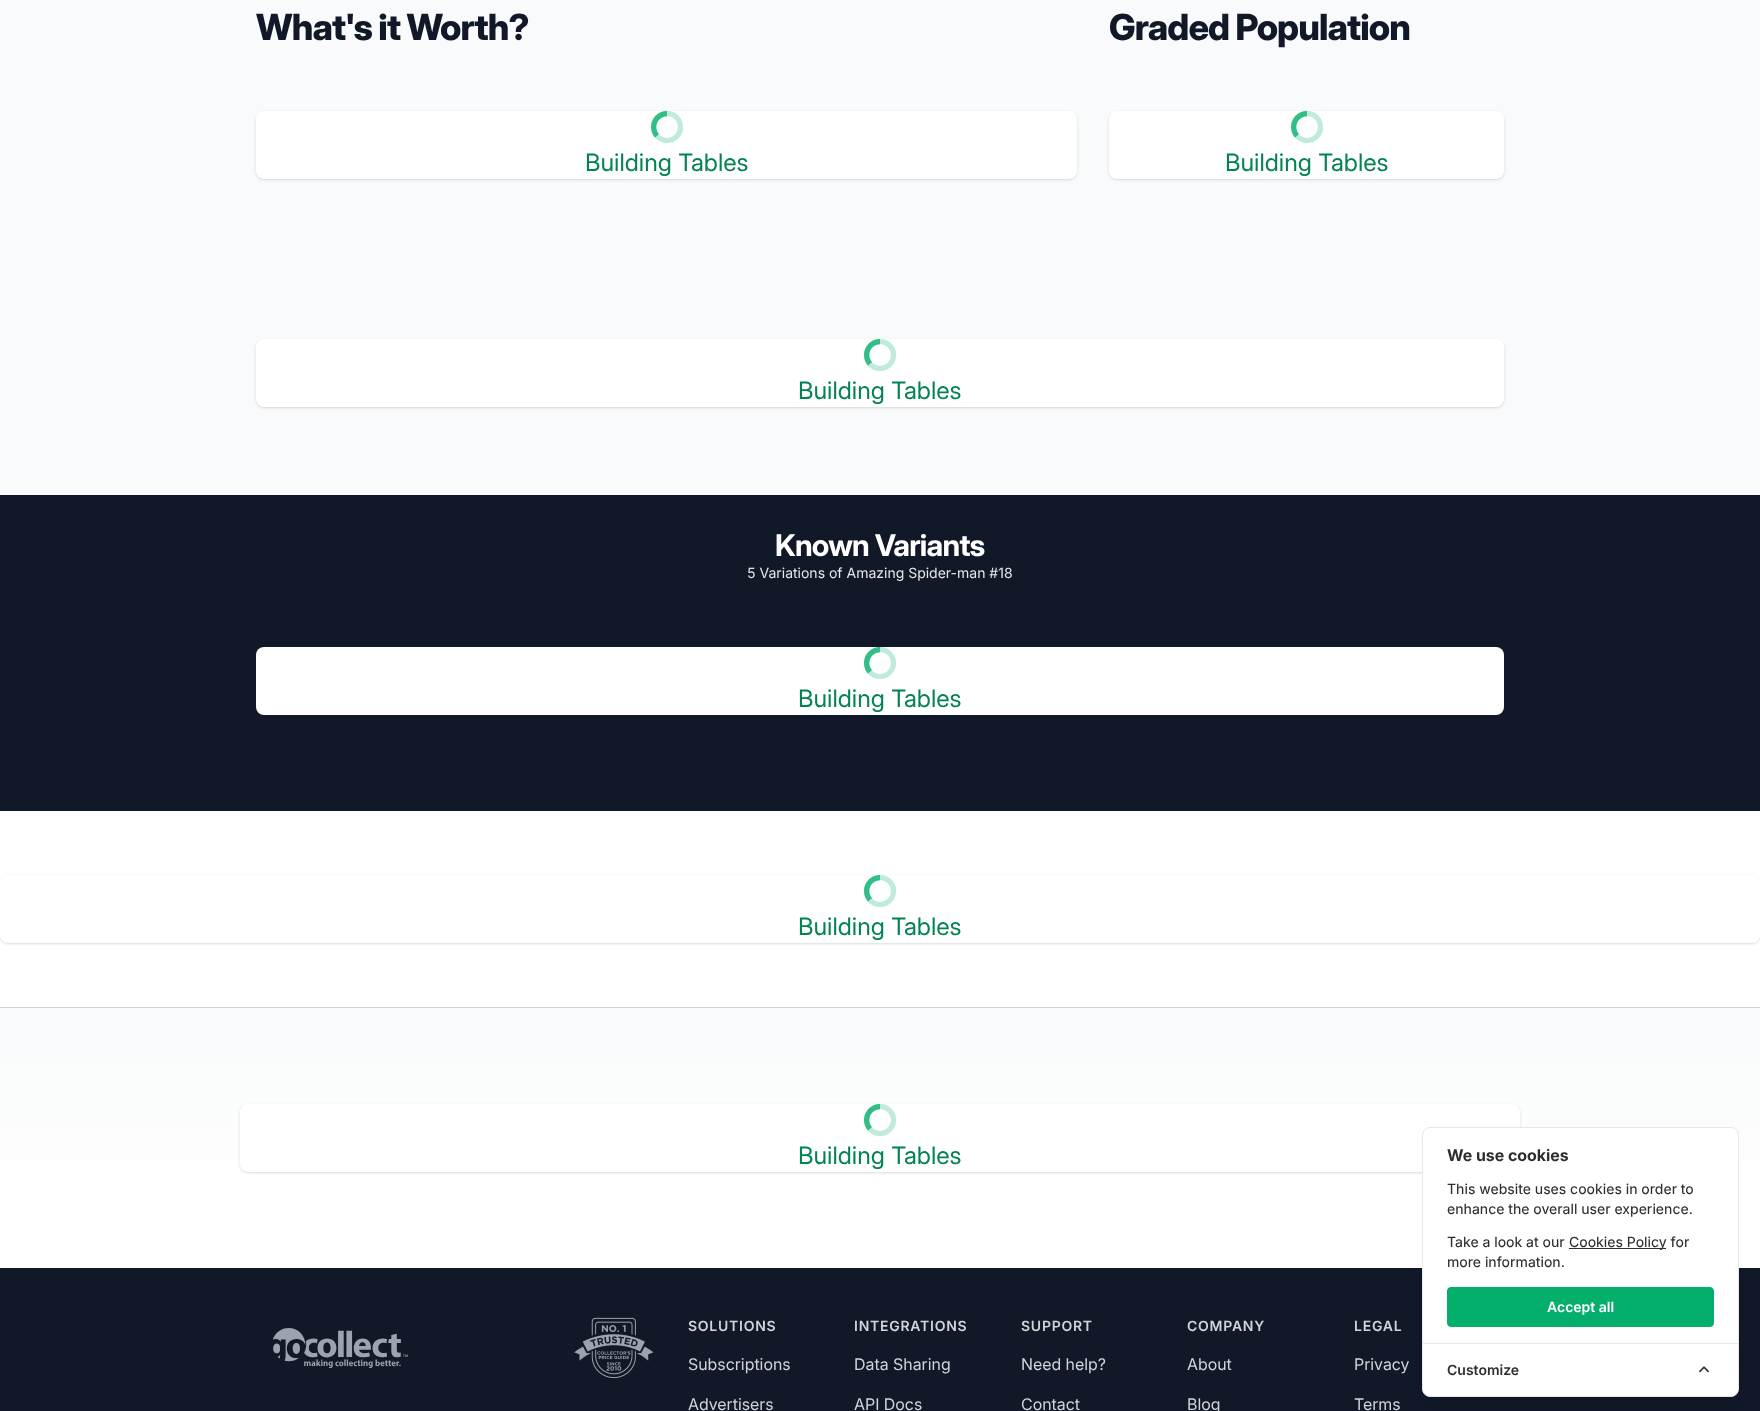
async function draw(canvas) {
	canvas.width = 1760;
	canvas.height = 1411;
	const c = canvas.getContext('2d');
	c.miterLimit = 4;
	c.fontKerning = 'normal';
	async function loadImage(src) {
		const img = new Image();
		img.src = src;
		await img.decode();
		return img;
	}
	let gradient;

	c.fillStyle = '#fff';
	c.fillRect(0, 0, 1760, 1411);
	c.fillStyle = '#f9fafb';
	c.fillRect(0, 0, 1760, 495);
	c.letterSpacing = '-0.9px';
	c.font = '800 36px Inter';
	c.fillStyle = '#111827';
	c.fillText('What\'s it Worth?', 256, 40);
	c.fillStyle = '#0000001a';
	c.filter = 'blur(1px)';
	c.beginPath();
	c.roundRect(257, 113, 819, 66, 7);
	c.fill();
	c.filter = 'none';
	c.filter = 'blur(1.5px)';
	c.beginPath();
	c.roundRect(256, 112, 821, 68, 8);
	c.fill();
	c.filter = 'none';
	c.fillStyle = '#fff';
	c.beginPath();
	c.roundRect(256, 111, 821, 68, 8);
	c.fill();
	c.drawImage(await loadImage('img1.png'), 651, 111, 32, 32);
	c.letterSpacing = '0px';
	c.font = '24px Inter';
	c.fillStyle = '#028350';
	c.fillText('Building Tables', 585, 171);
	c.letterSpacing = '-0.9px';
	c.font = '800 36px Inter';
	c.fillStyle = '#111827';
	c.fillText('Graded Population', 1109, 40);
	c.fillStyle = '#0000001a';
	c.filter = 'blur(1px)';
	c.beginPath();
	c.roundRect(1110, 113, 393, 66, 7);
	c.fill();
	c.filter = 'none';
	c.filter = 'blur(1.5px)';
	c.beginPath();
	c.roundRect(1109, 112, 395, 68, 8);
	c.fill();
	c.filter = 'none';
	c.fillStyle = '#fff';
	c.beginPath();
	c.roundRect(1109, 111, 395, 68, 8);
	c.fill();
	c.drawImage(await loadImage('img1.png'), 1291, 111, 32, 32);
	c.letterSpacing = '0px';
	c.font = '24px Inter';
	c.fillStyle = '#028350';
	c.fillText('Building Tables', 1225, 171);
	c.fillStyle = '#0000001a';
	c.filter = 'blur(1px)';
	c.beginPath();
	c.roundRect(257, 341, 1246, 66, 7);
	c.fill();
	c.filter = 'none';
	c.filter = 'blur(1.5px)';
	c.beginPath();
	c.roundRect(256, 340, 1248, 68, 8);
	c.fill();
	c.filter = 'none';
	c.fillStyle = '#fff';
	c.beginPath();
	c.roundRect(256, 339, 1248, 68, 8);
	c.fill();
	c.drawImage(await loadImage('img1.png'), 864, 339, 32, 32);
	c.fillStyle = '#028350';
	c.fillText('Building Tables', 798, 399);
	c.fillStyle = '#111827';
	c.fillRect(0, 495, 1760, 316);
	c.letterSpacing = '-0.75px';
	c.font = 'bold 30px Inter';
	c.fillStyle = '#fff';
	c.fillText('Known Variants', 775, 556);
	c.letterSpacing = '0px';
	c.font = '14px "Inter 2"';
	c.fillStyle = '#e5e7eb';
	c.fillText('5 Variations of Amazing Spider-man #18', 747, 578);
	c.fillStyle = '#fff';
	c.beginPath();
	c.roundRect(256, 647, 1248, 68, 8);
	c.fill();
	c.drawImage(await loadImage('img1.png'), 864, 647, 32, 32);
	c.font = '24px Inter';
	c.fillStyle = '#028350';
	c.fillText('Building Tables', 798, 707);
	c.fillStyle = '#0000001a';
	c.filter = 'blur(1px)';
	c.beginPath();
	c.roundRect(1, 877, 1758, 66, 7);
	c.fill();
	c.filter = 'none';
	c.filter = 'blur(1.5px)';
	c.beginPath();
	c.roundRect(0, 876, 1760, 68, 8);
	c.fill();
	c.filter = 'none';
	c.fillStyle = '#fff';
	c.beginPath();
	c.roundRect(0, 875, 1760, 68, 8);
	c.fill();
	c.drawImage(await loadImage('img1.png'), 864, 875, 32, 32);
	c.fillStyle = '#028350';
	c.fillText('Building Tables', 798, 935);
	gradient = c.createLinearGradient(880, 1268, 880, 1008);
	gradient.addColorStop(0, '#fff');
	gradient.addColorStop(1, '#f9fafb');
	c.fillStyle = gradient;
	c.fillRect(0, 1008, 1760, 152);
	c.fillStyle = '#d1d5db';
	c.fillRect(0, 1007, 1760, 1);
	c.fillStyle = '#0000001a';
	c.filter = 'blur(1px)';
	c.beginPath();
	c.roundRect(241, 1106, 1278, 66, 7);
	c.fill();
	c.filter = 'none';
	c.filter = 'blur(1.5px)';
	c.beginPath();
	c.roundRect(240, 1105, 1280, 68, 8);
	c.fill();
	c.filter = 'none';
	c.fillStyle = '#fff';
	c.beginPath();
	c.roundRect(240, 1104, 1280, 68, 8);
	c.fill();
	c.drawImage(await loadImage('img1.png'), 864, 1104, 32, 32);
	c.fillStyle = '#028350';
	c.fillText('Building Tables', 798, 1164);
	c.fillStyle = '#111827';
	c.fillRect(0, 1268, 1760, 143);
	c.drawImage(await loadImage('img2.png'), 272, 1328, 136, 40);
	c.drawImage(await loadImage('img3.png'), 574, 1317, 80, 62);
	c.letterSpacing = '0.75px';
	c.font = '600 14px Inter';
	c.fillStyle = '#d1d5db';
	c.fillText('SOLUTIONS', 688, 1331);
	c.letterSpacing = '0px';
	c.font = '16px "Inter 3"';
	c.fillText('Subscriptions', 688, 1370);
	c.fillText('Advertisers', 688, 1410);
	c.letterSpacing = '0.75px';
	c.font = '600 14px Inter';
	c.fillText('INTEGRATIONS', 854, 1331);
	c.letterSpacing = '0px';
	c.font = '16px "Inter 3"';
	c.fillText('Data Sharing', 854, 1370);
	c.fillText('API Docs', 854, 1410);
	c.letterSpacing = '0.75px';
	c.font = '600 14px Inter';
	c.fillText('SUPPORT', 1021, 1331);
	c.letterSpacing = '0px';
	c.font = '16px "Inter 3"';
	c.fillText('Need help?', 1021, 1370);
	c.fillText('Contact', 1021, 1410);
	c.letterSpacing = '0.75px';
	c.font = '600 14px Inter';
	c.fillText('COMPANY', 1187, 1331);
	c.letterSpacing = '0px';
	c.font = '16px "Inter 3"';
	c.fillText('About', 1187, 1370);
	c.fillText('Blog', 1187, 1410);
	c.letterSpacing = '0.75px';
	c.font = '600 14px Inter';
	c.fillText('LEGAL', 1354, 1331);
	c.letterSpacing = '0px';
	c.font = '16px "Inter 3"';
	c.fillText('Privacy', 1354, 1370);
	c.fillText('Terms', 1354, 1410);
	c.fillStyle = '#00000014';
	c.filter = 'blur(6px)';
	c.beginPath();
	c.rect(1430, 1147, 301, 254);
	c.fill();
	c.filter = 'none';
	c.fillStyle = '#fff';
	c.beginPath();
	c.roundRect(1422.5, 1127.5, 316, 269, 7.5);
	c.fill();
	c.strokeStyle = '#e7e8e9';
	c.stroke();
	c.font = 'bold 16px "Inter 2"';
	c.fillStyle = '#2c2e30';
	c.fillText('We use cookies', 1447, 1161);
	c.font = '14px "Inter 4"';
	for (const [text, x, y] of [
		['This website uses cookies in order to', 1447, 1194],
		['enhance the overall user experience.', 1447, 1214],
		['Take a look at our', 1447, 1247],
	]) {
		c.fillText(text, x, y);
	}
	c.fillRect(1569, 1248, 97, 1);
	c.fillText('Cookies Policy for', 1569, 1247);
	c.fillText('more information.', 1447, 1267);
	c.fillStyle = '#03af6a';
	c.beginPath();
	c.roundRect(1447.5, 1287.5, 266, 39, 3.5);
	c.fill();
	c.strokeStyle = '#03af6a';
	c.stroke();
	c.font = '600 14px Inter';
	c.fillStyle = '#fff';
	c.fillText('Accept all', 1547, 1312);
	c.fillStyle = '#e7e8e9';
	c.fillRect(1423, 1343, 315, 1);
	c.fillStyle = '#2c2e30';
	c.fillText('Customize', 1447, 1375);
	c.drawImage(await loadImage('img4.png'), 1699, 1366, 10, 7);
}

draw(document.querySelector('canvas'));
